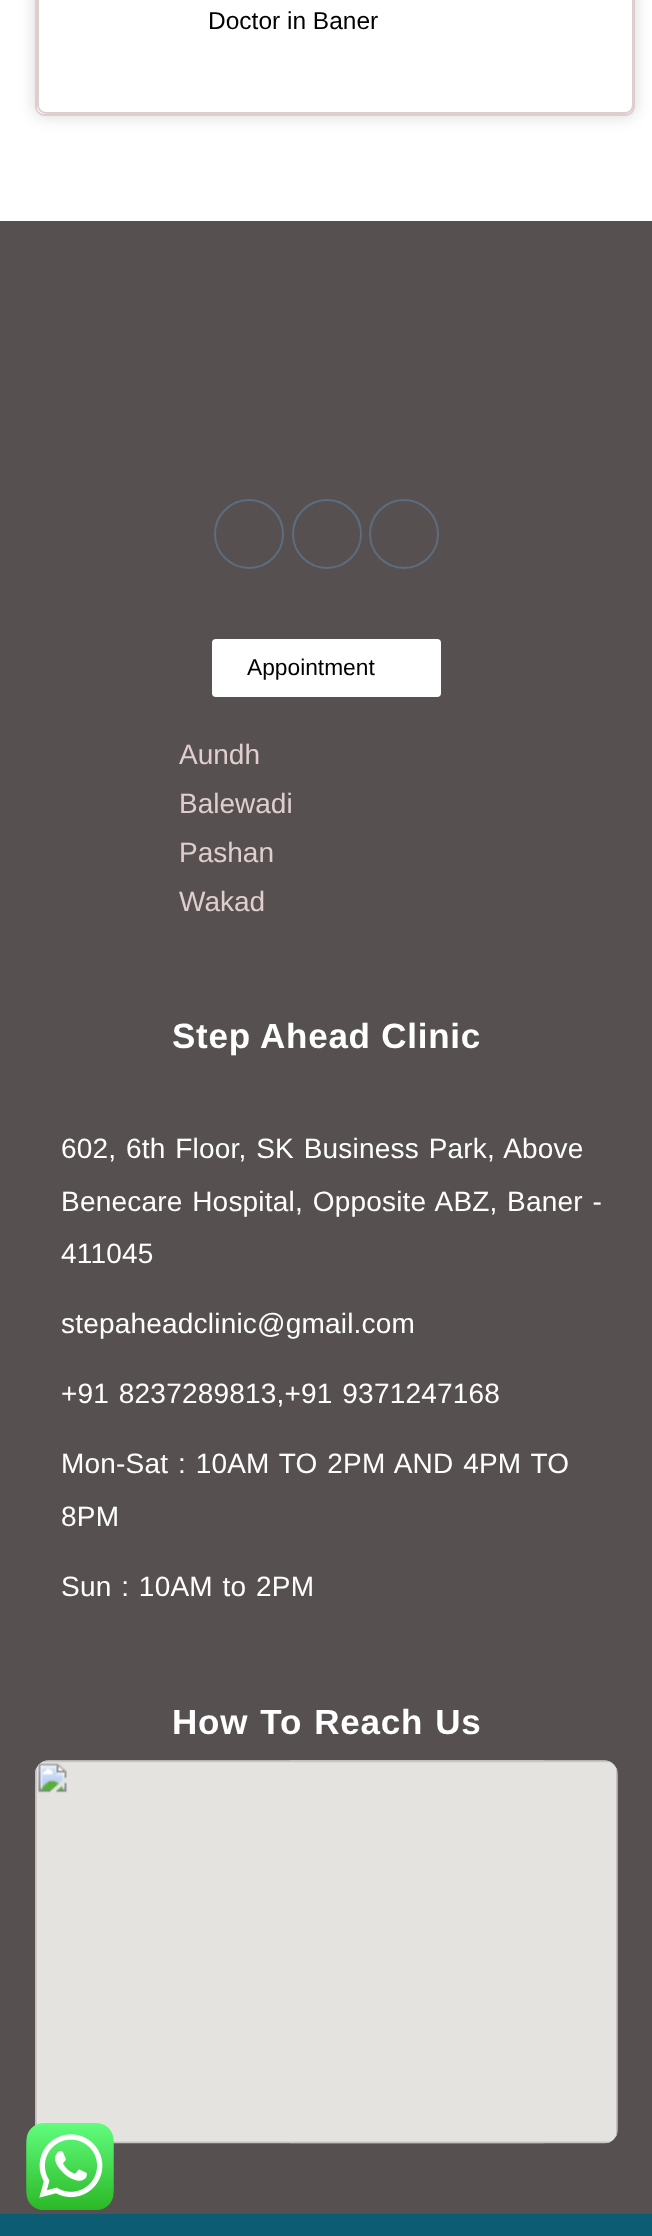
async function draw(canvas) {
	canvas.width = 652;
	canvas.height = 2236;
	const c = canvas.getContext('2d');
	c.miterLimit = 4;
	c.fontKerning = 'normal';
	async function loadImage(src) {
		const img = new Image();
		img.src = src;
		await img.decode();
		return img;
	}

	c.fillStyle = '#fff';
	c.fillRect(0, 0, 652, 2236);
	c.save();
	c.beginPath();
	c.moveTo(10, 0);
	c.lineTo(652, 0);
	c.lineTo(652, 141);
	c.lineTo(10, 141);
	c.closePath();
	c.moveTo(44, -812);
	c.lineTo(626, -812);
	c.bezierCurveTo(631, -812, 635, -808, 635, -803);
	c.lineTo(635, 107);
	c.bezierCurveTo(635, 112, 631, 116, 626, 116);
	c.lineTo(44, 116);
	c.bezierCurveTo(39, 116, 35, 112, 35, 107);
	c.lineTo(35, -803);
	c.bezierCurveTo(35, -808, 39, -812, 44, -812);
	c.closePath();
	c.clip('evenodd');
	c.fillStyle = '#00000029';
	c.filter = 'blur(8px)';
	c.beginPath();
	c.roundRect(35, -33, 600, 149, 9);
	c.fill();
	c.filter = 'none';
	c.restore();
	c.beginPath();
	c.roundRect(36, -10, 598, 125, 8);
	c.strokeStyle = '#e0cece';
	c.lineWidth = 2;
	c.stroke();
	c.beginPath();
	c.roundRect(38, -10, 595, 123, 8);
	c.stroke();
	c.font = '24.5px Liberation Sans';
	c.fillStyle = '#000';
	c.fillText('Doctor in Baner', 208, 29);
	c.fillStyle = '#575050';
	c.fillRect(0, 221, 652, 1993);
	c.beginPath();
	c.arc(249, 534, 34, 0, 2 * Math.PI);
	c.strokeStyle = '#5e6d7e';
	c.stroke();
	c.beginPath();
	c.arc(327, 534, 34, 0, 2 * Math.PI);
	c.stroke();
	c.beginPath();
	c.arc(404, 534, 34, 0, 2 * Math.PI);
	c.stroke();
	c.fillStyle = '#fff';
	c.beginPath();
	c.roundRect(212, 639, 229, 58, 4);
	c.fill();
	c.font = '22.75px Liberation Sans';
	c.fillStyle = '#000';
	c.fillText('Appointment', 247, 675);
	c.font = '28px Liberation Sans';
	c.fillStyle = '#e0cece';
	for (const [text, x, y] of [
		['Aundh', 179, 764],
		['Balewadi', 179, 813],
		['Pashan', 179, 862],
		['Wakad', 179, 911],
	]) {
		c.fillText(text, x, y);
	}
	c.letterSpacing = '0.75px';
	c.font = 'bold 35px Liberation Sans';
	c.fillStyle = '#fff';
	c.fillText('Step Ahead Clinic', 172, 1048);
	c.letterSpacing = '0.2px';
	c.wordSpacing = '1.75px';
	c.font = '28px Liberation Sans';
	for (const [text, x, y] of [
		['602, 6th Floor, SK Business Park, Above', 61, 1158],
		['Benecare Hospital, Opposite ABZ,', 61, 1211],
		['Baner -', 507, 1211],
	]) {
		c.fillText(text, x, y);
	}
	c.wordSpacing = '0px';
	c.fillText('411045', 61, 1263);
	c.fillText('stepaheadclinic@gmail.com', 61, 1333);
	c.wordSpacing = '1.75px';
	c.fillText('+91 8237289813,+91 9371247168', 61, 1403);
	c.fillText('Mon-Sat : 10AM TO 2PM AND 4PM TO', 61, 1473);
	c.wordSpacing = '0px';
	c.fillText('8PM', 61, 1526);
	c.wordSpacing = '1.75px';
	c.fillText('Sun : 10AM to 2PM', 61, 1596);
	c.letterSpacing = '0.75px';
	c.font = 'bold 35px Liberation Sans';
	c.fillText('How To Reach Us', 172, 1734);
	c.drawImage(await loadImage('img1.png'), 35, 1760, 583, 384);
	c.fillStyle = '#0c5c74';
	c.fillRect(0, 2214, 652, 22);
	c.drawImage(await loadImage('img2.png'), 26, 2123, 88, 87);
}

draw(document.querySelector('canvas'));
